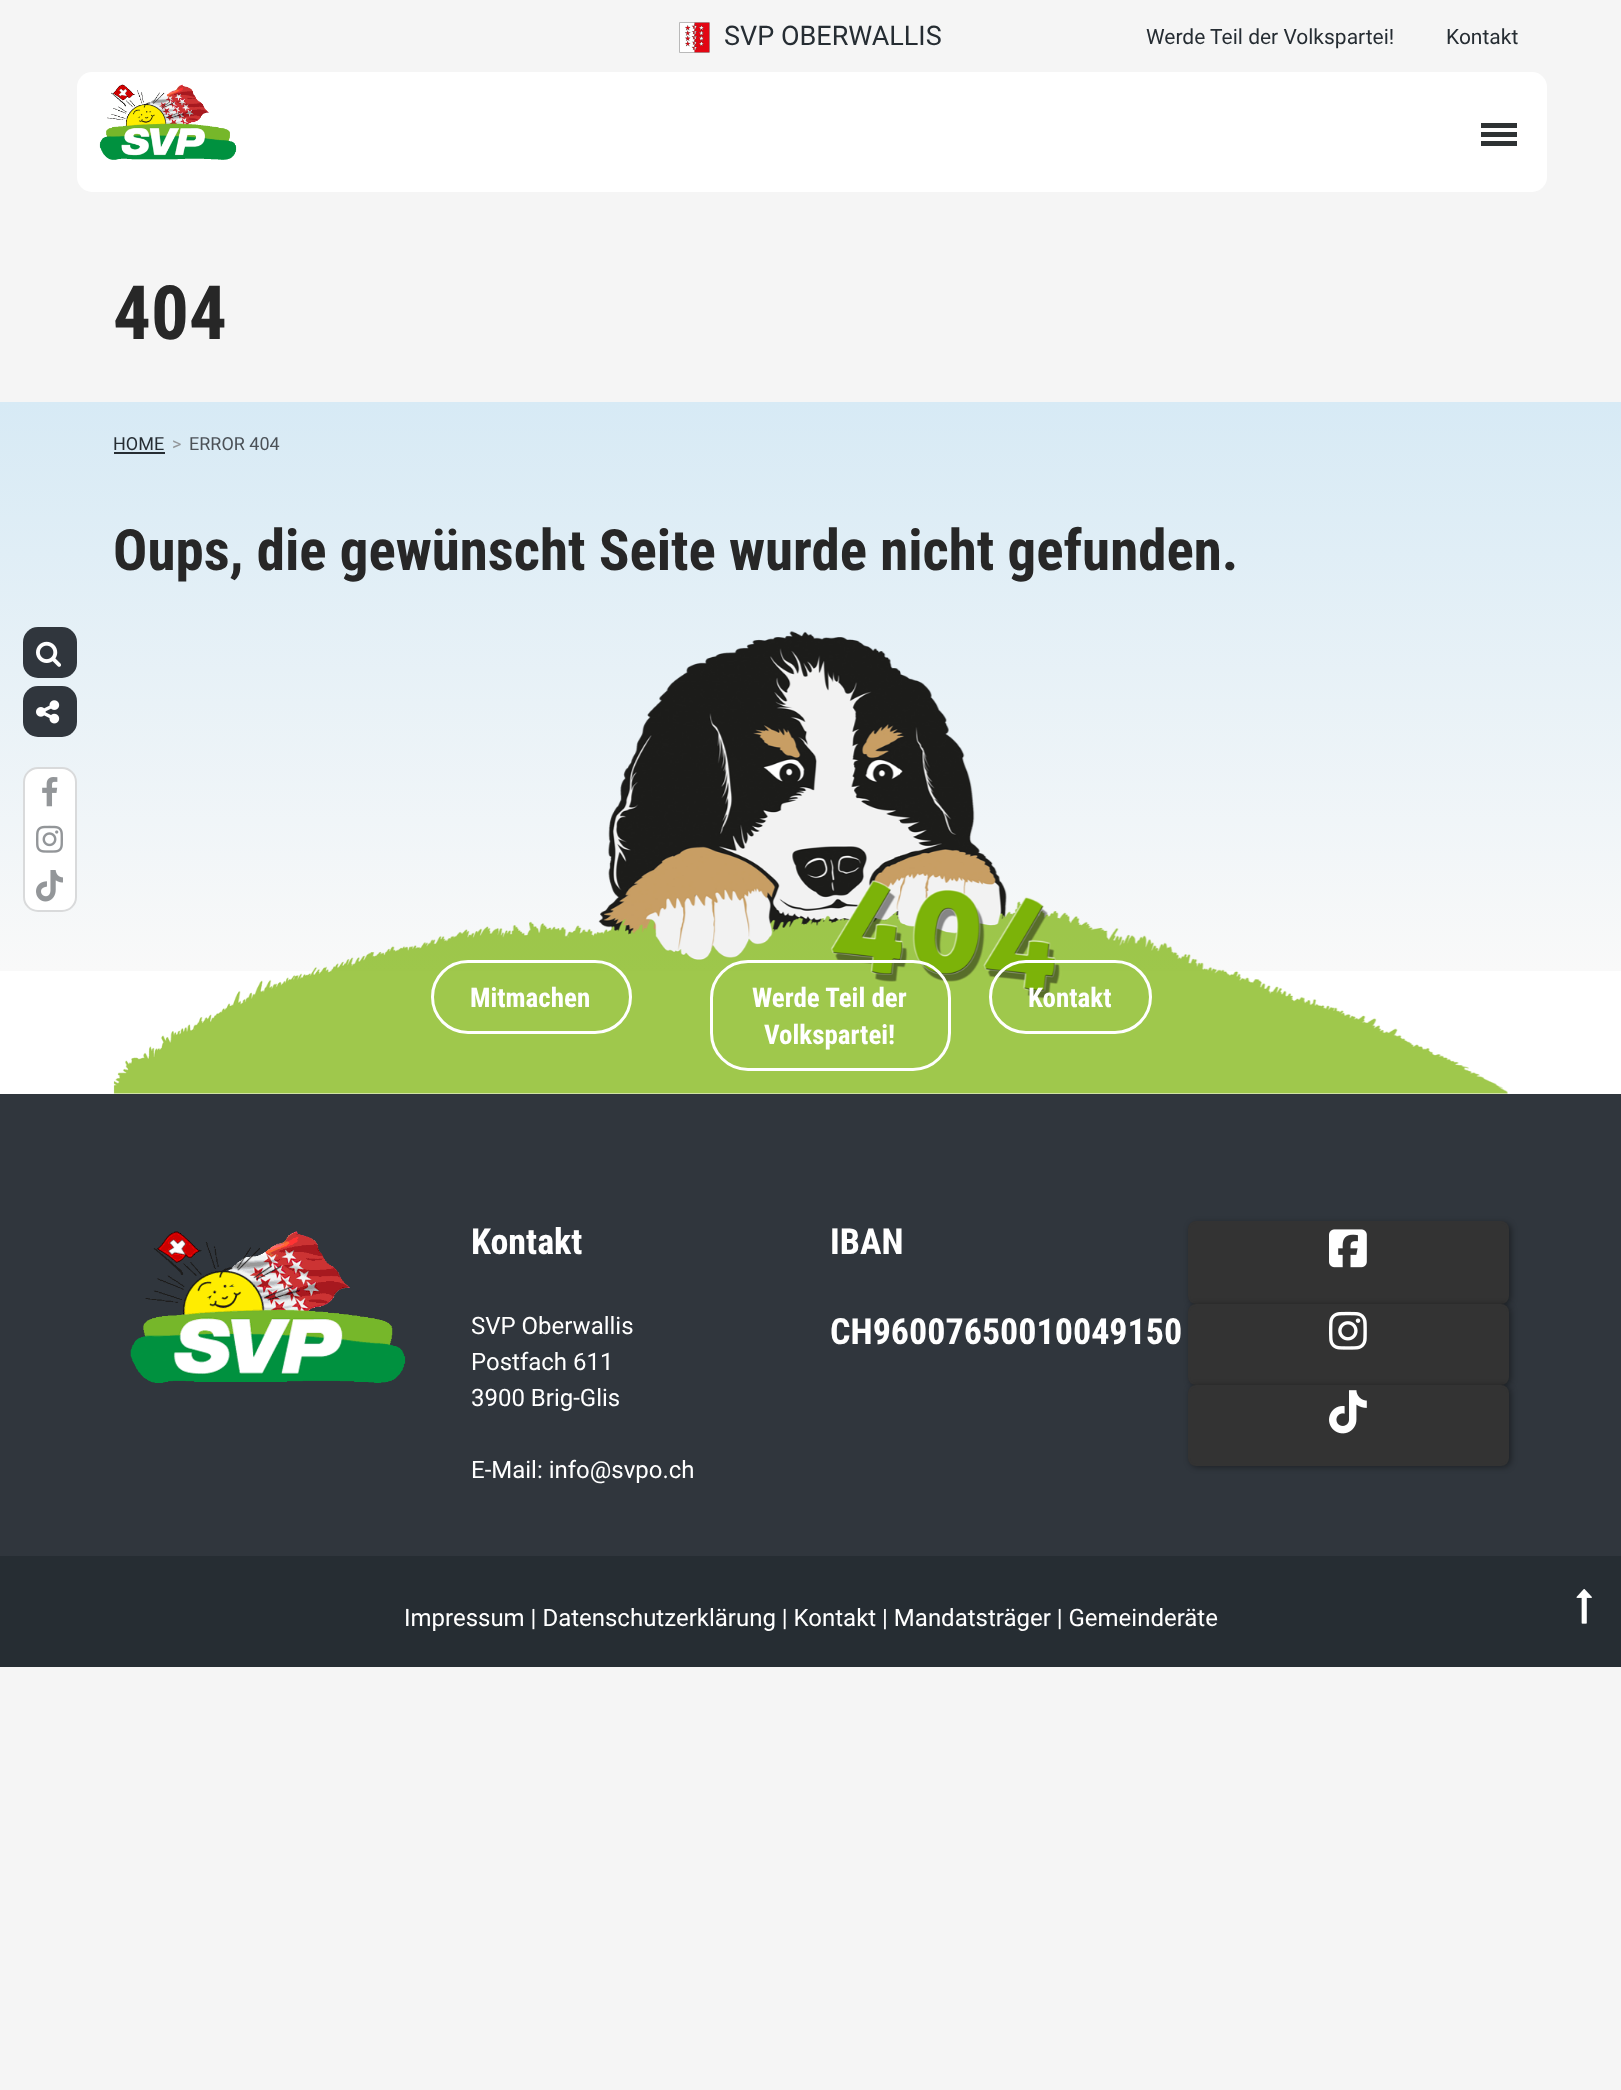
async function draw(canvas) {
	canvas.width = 1621;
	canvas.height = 2090;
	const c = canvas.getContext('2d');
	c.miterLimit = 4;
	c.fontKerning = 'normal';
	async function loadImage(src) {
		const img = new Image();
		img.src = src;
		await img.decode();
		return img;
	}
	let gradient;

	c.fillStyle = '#f5f5f5';
	c.fillRect(0, 0, 1621, 2090);
	c.drawImage(await loadImage('img1.png'), 679, 22, 31, 31);
	c.font = '27px Roboto';
	c.fillStyle = '#262d33';
	c.fillText('SVP OBERWALLIS', 724, 45);
	c.font = '21px Roboto';
	c.fillText('Werde Teil der Volkspartei!', 1146, 44);
	c.fillText('Kontakt', 1446, 44);
	c.fillStyle = '#fff';
	c.beginPath();
	c.roundRect(77, 72, 1470, 120, 15);
	c.fill();
	c.drawImage(await loadImage('img2.png'), 99, 84, 138, 76);
	for (const [x, y, w, h, color] of [
		[1481, 132, 36, 5, '#2e3233'],
		[1481, 123, 36, 5, '#2e3233'],
		[1481, 141, 36, 5, '#2e3233'],
	]) {
		c.fillStyle = color;
		c.fillRect(x, y, w, h);
	}
	c.font = 'bold 75px Roboto Condensed';
	c.fillStyle = '#272727';
	c.fillText('404', 113, 339);
	gradient = c.createLinearGradient(811, 402, 811, 1667);
	gradient.addColorStop(0, '#d7eaf5');
	gradient.addColorStop(0.45, '#f9f9f9');
	gradient.addColorStop(0.45, '#fff');
	c.fillStyle = gradient;
	c.fillRect(0, 402, 1621, 692);
	c.fillStyle = '#30363d';
	c.beginPath();
	c.roundRect(23, 627, 54, 51, 15);
	c.fill();
	c.drawImage(await loadImage('img3.png'), 36, 641, 25, 26);
	c.beginPath();
	c.roundRect(23, 686, 54, 51, 15);
	c.fill();
	c.drawImage(await loadImage('img4.png'), 36, 700, 24, 24);
	c.fillStyle = '#fff';
	c.beginPath();
	c.roundRect(24, 768, 52, 143, 14);
	c.fill();
	c.strokeStyle = '#d9dadb';
	c.lineWidth = 2;
	c.stroke();
	c.drawImage(await loadImage('img5.png'), 42, 777, 16, 30);
	c.drawImage(await loadImage('img6.png'), 36, 825, 27, 28);
	c.drawImage(await loadImage('img7.png'), 36, 870, 27, 32);
	c.font = '18px Roboto';
	c.fillStyle = '#262d33';
	c.fillText('HOME', 113, 450);
	c.fillRect(114, 452, 51, 2);
	c.fillStyle = '#939699';
	c.fillText('>', 172, 450);
	c.fillStyle = '#4b5157';
	c.fillText('ERROR 404', 189, 450);
	c.font = 'bold 57px Roboto Condensed';
	c.fillStyle = '#272727';
	c.fillText('Oups, die gewünscht Seite wurde nicht gefunden.', 113, 570);
	c.drawImage(await loadImage('img8.png'), 113, 631, 1395, 463);
	c.beginPath();
	c.roundRect(432.5, 961.5, 198, 71, 35.5);
	c.strokeStyle = '#fff';
	c.lineWidth = 3;
	c.stroke();
	c.font = 'bold 27px Roboto Condensed';
	c.fillStyle = '#fff';
	c.fillText('Mitmachen', 470, 1007);
	c.beginPath();
	c.roundRect(711.5, 961.5, 238, 108, 36.5);
	c.stroke();
	c.fillText('Werde Teil der', 752, 1007);
	c.fillText('Volkspartei!', 764, 1044);
	c.beginPath();
	c.roundRect(990.5, 961.5, 160, 71, 35.5);
	c.stroke();
	c.fillText('Kontakt', 1028, 1007);
	c.fillStyle = '#30363d';
	c.fillRect(0, 1094, 1621, 462);
	c.drawImage(await loadImage('img9.png'), 130, 1231, 276, 152);
	c.font = 'bold 36px Roboto Condensed';
	c.fillStyle = '#fff';
	c.fillText('Kontakt', 471, 1254);
	c.font = '24px Roboto';
	for (const [text, x, y] of [
		['SVP Oberwallis', 471, 1334],
		['Postfach 611', 471, 1370],
		['3900 Brig-Glis', 471, 1406],
		['E-Mail: info@svpo.ch', 471, 1478],
	]) {
		c.fillText(text, x, y);
	}
	c.font = 'bold 36px Roboto Condensed';
	c.fillText('IBAN', 830, 1254);
	c.fillText('CH96007650010049150', 830, 1344);
	c.fillStyle = '#00000066';
	c.filter = 'blur(3px)';
	c.beginPath();
	c.roundRect(1190, 1223, 321, 82, 8);
	c.fill();
	c.filter = 'none';
	c.fillStyle = '#333';
	c.beginPath();
	c.roundRect(1189, 1222, 319, 81, 7);
	c.fill();
	c.strokeStyle = '#333';
	c.lineWidth = 2;
	c.stroke();
	c.drawImage(await loadImage('img10.png'), 1329, 1229, 38, 39);
	c.fillStyle = '#00000066';
	c.filter = 'blur(3px)';
	c.beginPath();
	c.roundRect(1190, 1305, 321, 81, 8);
	c.fill();
	c.filter = 'none';
	c.fillStyle = '#333';
	c.beginPath();
	c.roundRect(1189, 1305, 319, 79, 7);
	c.fill();
	c.stroke();
	c.drawImage(await loadImage('img11.png'), 1329, 1311, 38, 39);
	c.fillStyle = '#00000066';
	c.filter = 'blur(3px)';
	c.beginPath();
	c.roundRect(1190, 1386, 321, 81, 8);
	c.fill();
	c.filter = 'none';
	c.fillStyle = '#333';
	c.beginPath();
	c.roundRect(1189, 1386, 319, 79, 7);
	c.fill();
	c.stroke();
	c.drawImage(await loadImage('img12.png'), 1329, 1390, 38, 44);
	c.fillStyle = '#262d33';
	c.fillRect(0, 1556, 1621, 111);
	c.font = '24px Roboto';
	c.fillStyle = '#fff';
	c.fillText('Impressum | Datenschutzerklärung | Kontakt | Mandatsträger | Gemeinderäte', 404, 1626);
	c.drawImage(await loadImage('img13.png'), 1576, 1589, 16, 35);
}

draw(document.querySelector('canvas'));
